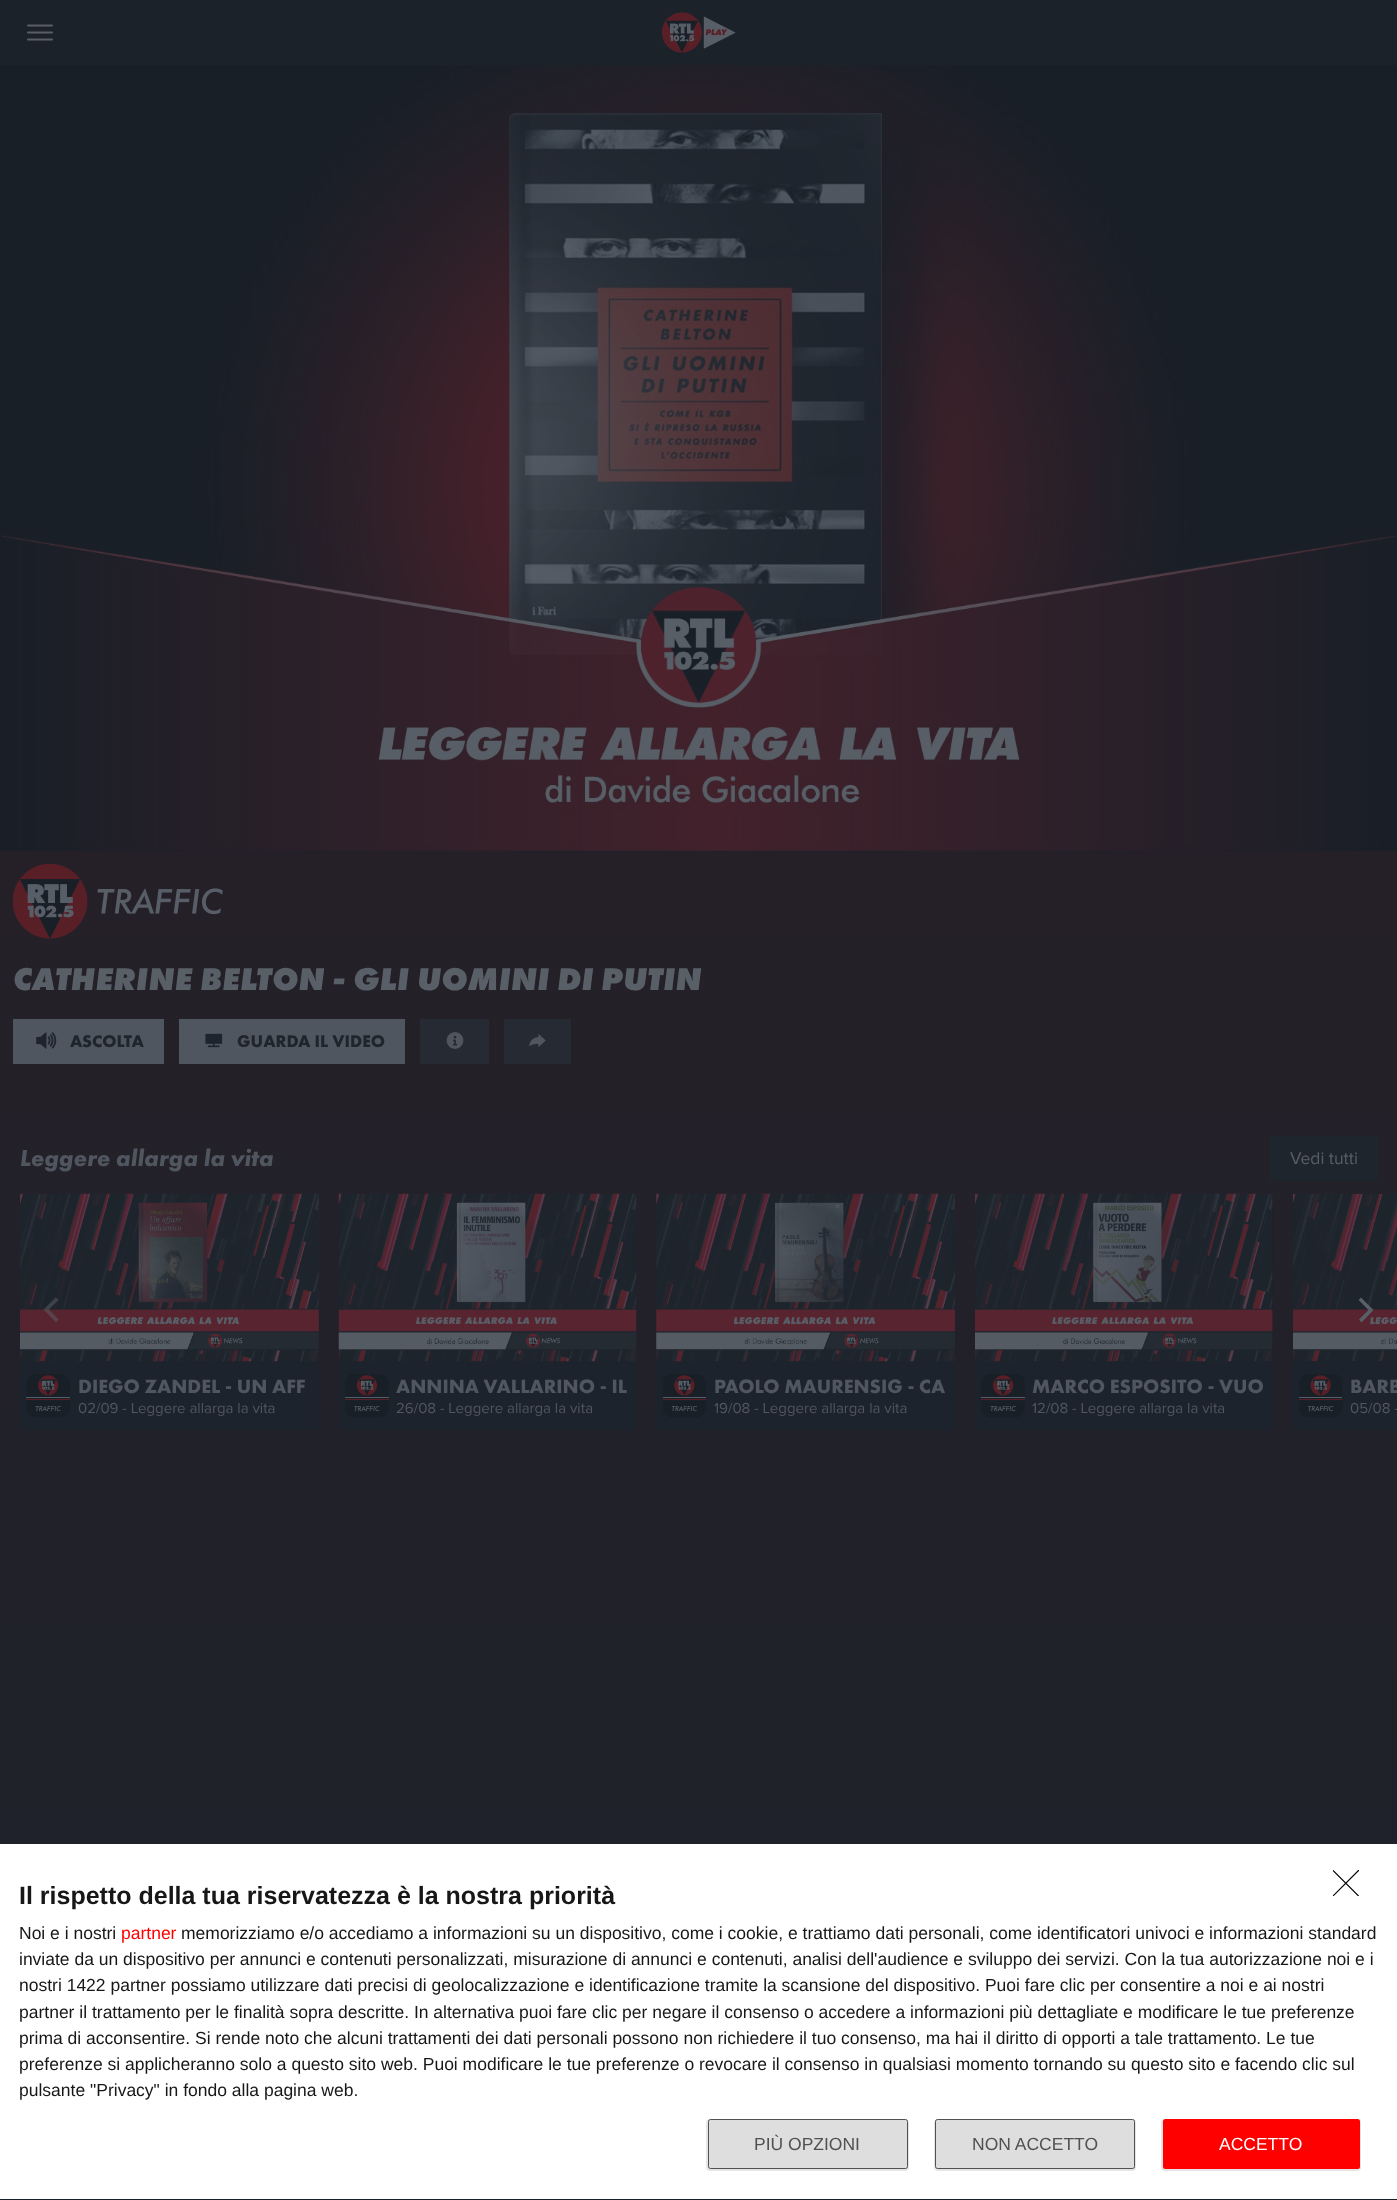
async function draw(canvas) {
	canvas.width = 1397;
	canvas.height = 2200;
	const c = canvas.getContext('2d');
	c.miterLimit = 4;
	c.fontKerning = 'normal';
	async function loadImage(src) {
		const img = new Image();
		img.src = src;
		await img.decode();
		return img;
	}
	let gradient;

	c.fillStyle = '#fff';
	c.fillRect(0, 0, 1397, 2200);
	gradient = c.createLinearGradient(699, 0, 699, 2200);
	gradient.addColorStop(0, '#2b1f27');
	gradient.addColorStop(1, '#1c222a');
	c.fillStyle = gradient;
	c.fillRect(0, 851, 1397, 1349);
	c.fillStyle = '#1c222a';
	c.fillRect(0, 0, 1397, 65);
	c.drawImage(await loadImage('img1.png'), 27, 24, 26, 17);
	c.drawImage(await loadImage('img2.png'), 661, 12, 75, 41);
	c.drawImage(await loadImage('img3.png'), 0, 65, 1397, 786);
	c.drawImage(await loadImage('img4.png'), 13, 864, 210, 75);
	c.font = 'italic 800 32.5px Futura PT';
	c.fillStyle = '#595f67';
	c.fillText('CATHERINE BELTON - GLI UOMINI DI PUTIN', 13, 990);
	c.fillStyle = '#50565f';
	c.fillRect(13, 1019, 151, 45);
	c.drawImage(await loadImage('img5.png'), 36, 1032, 21, 17);
	c.font = 'bold 17.5px Futura PT';
	c.fillStyle = '#1f252d';
	c.fillText('ASCOLTA', 70, 1047);
	c.fillStyle = '#50565f';
	c.fillRect(179, 1019, 226, 45);
	c.drawImage(await loadImage('img6.png'), 205, 1033, 18, 15);
	c.fillStyle = '#1f252d';
	c.fillText('GUARDA IL VIDEO', 237, 1047);
	c.fillStyle = '#252a33';
	c.fillRect(420, 1019, 69, 45);
	c.drawImage(await loadImage('img7.png'), 446, 1032, 18, 17);
	c.fillRect(504, 1019, 67, 45);
	c.drawImage(await loadImage('img8.png'), 529, 1034, 17, 13);
	c.font = 'italic bold 24px Futura PT';
	c.fillStyle = '#50565f';
	c.fillText('Leggere allarga la vita', 20, 1166);
	c.fillStyle = '#1f252d';
	c.fillRect(1270, 1136, 108, 45);
	c.font = '17.5px Proxima Nova';
	c.fillStyle = '#595f67';
	c.fillText('Vedi tutti', 1290, 1164);
	c.fillStyle = '#1d232c';
	c.fillRect(20, 1361, 299, 69);
	c.drawImage(await loadImage('img9.png'), 20, 1193, 299, 169);
	c.fillStyle = '#595f6780';
	c.beginPath();
	c.moveTo(58.5, 1319.5);
	c.lineTo(56, 1322.5);
	c.lineTo(43.5, 1309.5);
	c.lineTo(55.5, 1297.5);
	c.lineTo(58.5, 1300);
	c.lineTo(49, 1309.5);
	c.closePath();
	c.fill();
	c.drawImage(await loadImage('img16.png'), 1293, 1194, 104, 167);
	c.fillStyle = '#595f67';
	c.beginPath();
	c.moveTo(1358.5, 1300);
	c.lineTo(1361, 1297.5);
	c.lineTo(1373.5, 1310);
	c.lineTo(1361.5, 1322.5);
	c.lineTo(1359, 1319.5);
	c.lineTo(1368.5, 1310);
	c.closePath();
	c.fill();
	c.drawImage(await loadImage('img10.png'), 26, 1374, 44, 44);
	c.font = 'bold 20px Futura PT';
	c.fillStyle = '#50565f';
	c.fillText('DIEGO ZANDEL - UN AFF', 78, 1393);
	c.font = '15px Proxima Nova';
	c.fillText('02/09 - Leggere allarga la vita', 78, 1413);
	c.fillStyle = '#1d232c';
	c.fillRect(339, 1361, 297, 69);
	c.drawImage(await loadImage('img11.png'), 338, 1193, 299, 169);
	c.drawImage(await loadImage('img12.png'), 345, 1374, 44, 44);
	c.font = 'bold 20px Futura PT';
	c.fillStyle = '#50565f';
	c.fillText('ANNINA VALLARINO - IL', 396, 1393);
	c.font = '15px Proxima Nova';
	c.fillText('26/08 - Leggere allarga la vita', 396, 1413);
	c.fillStyle = '#1d232c';
	c.fillRect(656, 1361, 299, 69);
	c.drawImage(await loadImage('img13.png'), 656, 1193, 299, 169);
	c.drawImage(await loadImage('img14.png'), 663, 1374, 43, 44);
	c.font = 'bold 20px Futura PT';
	c.fillStyle = '#50565f';
	c.fillText('PAOLO MAURENSIG - CA', 714, 1393);
	c.font = '15px Proxima Nova';
	c.fillText('19/08 - Leggere allarga la vita', 714, 1413);
	c.fillStyle = '#191f27';
	c.fillRect(1272, 1194, 1, 167);
	c.fillStyle = '#1d232c';
	c.fillRect(975, 1361, 298, 69);
	c.drawImage(await loadImage('img15.png'), 975, 1193, 298, 169);
	c.drawImage(await loadImage('img10.png'), 981, 1374, 44, 44);
	c.font = 'bold 20px Futura PT';
	c.fillStyle = '#50565f';
	c.fillText('MARCO ESPOSITO - VUO', 1032, 1393);
	c.font = '15px Proxima Nova';
	c.fillText('12/08 - Leggere allarga la vita', 1032, 1413);
	c.fillStyle = '#1d232c';
	c.fillRect(1293, 1361, 104, 69);
	c.drawImage(await loadImage('img17.png'), 1299, 1374, 44, 44);
	c.font = 'bold 20px Futura PT';
	c.fillStyle = '#50565f';
	c.fillText('BARB', 1350, 1393);
	c.font = '15px Proxima Nova';
	c.fillText('05/08 -', 1350, 1413);
	c.fillStyle = '#fff';
	c.fillRect(0, 1844, 1397, 355);
	c.save();
	c.beginPath();
	c.rect(1333, 1870, 26, 26);
	c.clip();
	c.beginPath();
	c.moveTo(1333, 1870.5);
	c.lineTo(1358.5, 1896);
	c.moveTo(1358.5, 1870.5);
	c.lineTo(1333, 1896);
	c.strokeStyle = '#000';
	c.lineWidth = 1.1;
	c.lineCap = 'round';
	c.lineJoin = 'round';
	c.stroke();
	c.restore();
	c.font = 'bold 25px Liberation Sans';
	c.fillStyle = '#171717';
	c.fillText('Il rispetto della tua riservatezza è la nostra priorità', 19, 1904);
	c.font = '17.5px Liberation Sans';
	c.fillText('Noi e i nostri', 19, 1939);
	c.fillStyle = '#f00';
	c.fillText('partner', 121, 1939);
	c.fillStyle = '#171717';
	for (const [text, x, y] of [
		['memorizziamo e/o accediamo a informazioni su un dispositivo, come i cookie, e trattiamo dati personali, come identificatori univoci e informazioni standard', 181, 1939],
		['inviate da un dispositivo per annunci e contenuti personalizzati, misurazione di annunci e contenuti, analisi dell\'audience e sviluppo dei servizi. Con la tua autorizzazione noi e i', 19, 1965],
		['nostri 1422 partner possiamo utilizzare dati precisi di geolocalizzazione e identificazione tramite la scansione del dispositivo. Puoi fare clic per consentire a noi e ai nostri', 19, 1991],
		['partner il trattamento per le finalità sopra descritte. In alternativa puoi fare clic per negare il consenso o accedere a informazioni più dettagliate e modificare le tue preferenze', 19, 2018],
		['prima di acconsentire. Si rende noto che alcuni trattamenti dei dati personali possono non richiedere il tuo consenso, ma hai il diritto di opporti a tale trattamento. Le tue', 19, 2044],
		['preferenze si applicheranno solo a questo sito web. Puoi modificare le tue preferenze o revocare il consenso in qualsiasi momento tornando su questo sito e facendo clic sul', 19, 2070],
		['pulsante "Privacy" in fondo alla pagina web.', 19, 2096],
	]) {
		c.fillText(text, x, y);
	}
	c.fillStyle = '#0000001a';
	c.filter = 'blur(0.5px)';
	c.beginPath();
	c.roundRect(706, 2119, 203, 52, 4);
	c.fill();
	c.filter = 'none';
	c.fillStyle = '#dedede';
	c.beginPath();
	c.roundRect(708.5, 2119.5, 199, 49, 2);
	c.fill();
	c.strokeStyle = '#515151';
	c.stroke();
	c.fillStyle = '#515151';
	c.fillText('PIÙ OPZIONI', 754, 2150);
	c.fillStyle = '#0000001a';
	c.filter = 'blur(0.5px)';
	c.beginPath();
	c.roundRect(934, 2119, 202, 52, 4);
	c.fill();
	c.filter = 'none';
	c.fillStyle = '#dedede';
	c.beginPath();
	c.roundRect(935.5, 2119.5, 199, 49, 2);
	c.fill();
	c.stroke();
	c.fillStyle = '#515151';
	c.fillText('NON ACCETTO', 972, 2150);
	c.fillStyle = '#0000001a';
	c.filter = 'blur(0.5px)';
	c.beginPath();
	c.roundRect(1161, 2119, 200, 52, 4);
	c.fill();
	c.filter = 'none';
	c.fillStyle = '#f00';
	c.beginPath();
	c.roundRect(1163, 2119, 197, 50, 2.5);
	c.fill();
	c.fillStyle = '#fff';
	c.fillText('ACCETTO', 1219, 2150);
}

draw(document.querySelector('canvas'));
